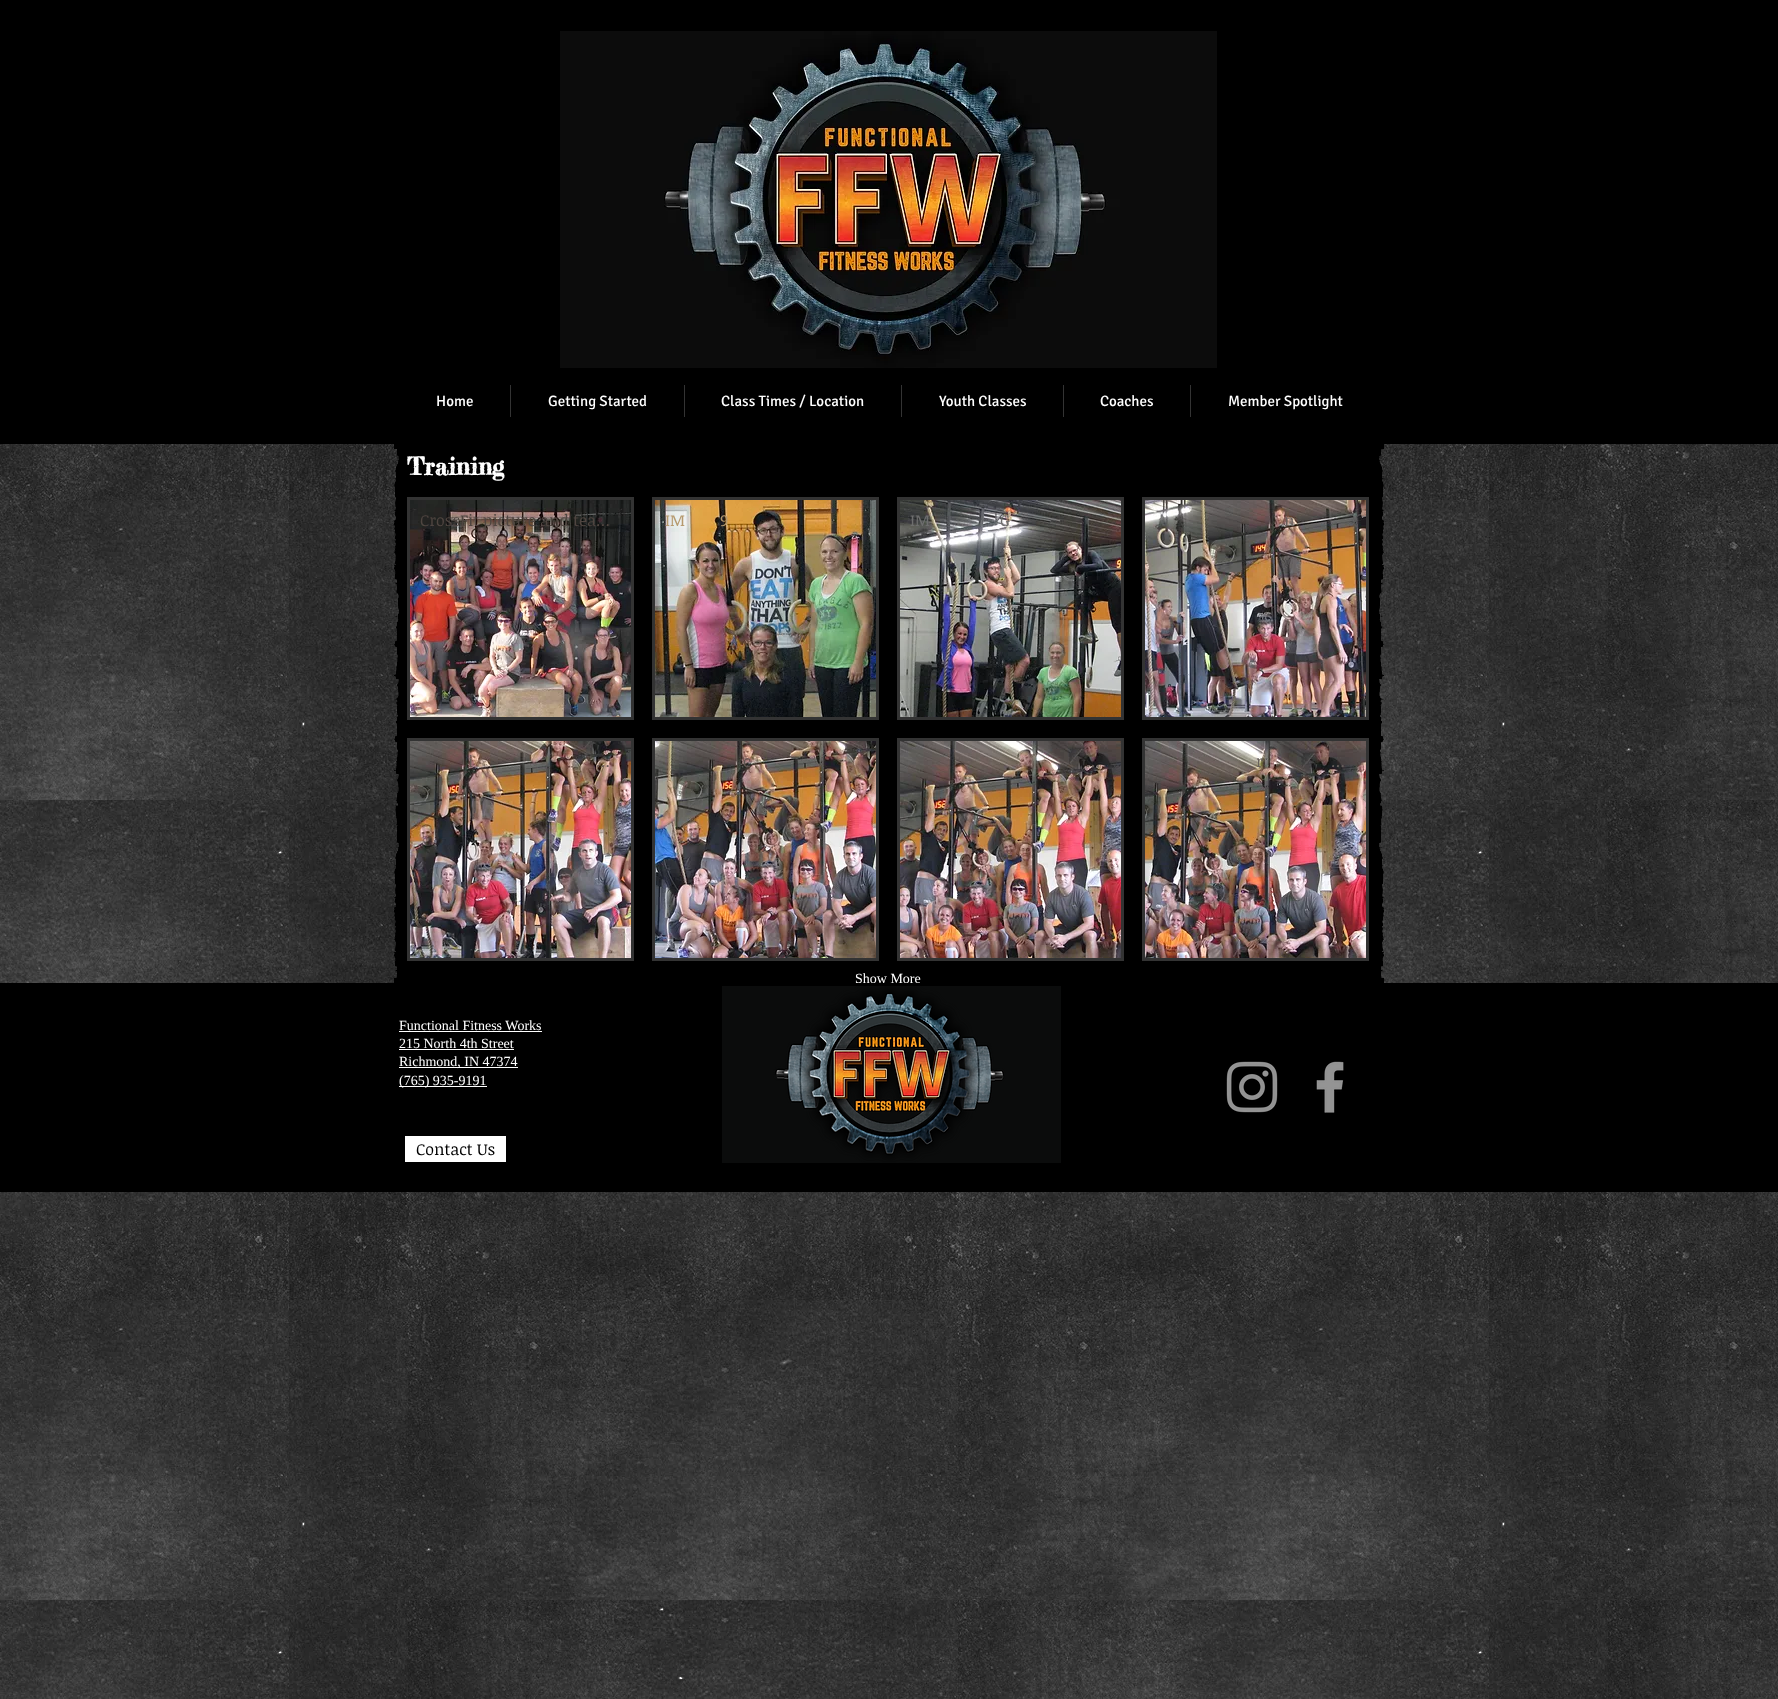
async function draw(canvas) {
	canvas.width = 1778;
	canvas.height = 1699;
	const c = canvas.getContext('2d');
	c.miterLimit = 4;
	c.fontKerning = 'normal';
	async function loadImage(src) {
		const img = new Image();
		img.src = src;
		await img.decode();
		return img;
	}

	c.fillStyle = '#fff';
	c.fillRect(0, 0, 1778, 1699);
	c.fillStyle = '#000';
	c.fillRect(0, 0, 1778, 444);
	c.drawImage(await loadImage('img1.png'), 560, 31, 657, 337);
	c.font = '15px Signika';
	c.fillStyle = '#fff';
	c.fillText('Home', 436, 406);
	c.fillStyle = '#333';
	c.fillRect(510, 385, 1, 32);
	c.fillStyle = '#fff';
	c.fillText('Getting Started', 548, 406);
	c.fillStyle = '#333';
	c.fillRect(684, 385, 1, 32);
	c.fillStyle = '#fff';
	c.fillText('Class Times / Location', 721, 406);
	c.fillStyle = '#333';
	c.fillRect(901, 385, 1, 32);
	c.fillStyle = '#fff';
	c.fillText('Youth Classes', 939, 406);
	c.fillStyle = '#333';
	c.fillRect(1063, 385, 1, 32);
	c.fillStyle = '#fff';
	c.fillText('Coaches', 1100, 406);
	c.fillStyle = '#333';
	c.fillRect(1190, 385, 1, 32);
	c.fillStyle = '#fff';
	c.fillText('Member Spotlight', 1228, 406);
	c.drawImage(await loadImage('img16.png'), 0, 444, 1778, 1255);
	c.fillStyle = '#000';
	c.fillRect(402, 449, 974, 529);
	c.fillRect(394, 444, 990, 5);
	c.drawImage(await loadImage('img2.png'), 394, 978, 990, 5);
	c.drawImage(await loadImage('img3.png'), 394, 449, 8, 529);
	c.drawImage(await loadImage('img4.png'), 1376, 449, 8, 529);
	c.font = 'bold 24px Fredericka the Great';
	c.fillStyle = '#fff';
	c.fillText('Training', 407, 475);
	c.fillStyle = '#333';
	c.fillRect(407, 497, 227, 223);
	c.drawImage(await loadImage('img5.png'), 410, 500, 221, 217);
	c.font = '16px Noticia Text';
	c.fillStyle = '#4f4540';
	c.fillText('CrossFit picture and tea…', 420, 526);
	c.fillStyle = '#333';
	c.fillRect(652, 497, 227, 223);
	c.drawImage(await loadImage('img6.png'), 655, 500, 221, 217);
	c.fillStyle = '#b6996d';
	c.fillText('IM', 665, 526);
	c.fillText('9', 720, 526);
	c.fillStyle = '#333';
	c.fillRect(897, 497, 227, 223);
	c.drawImage(await loadImage('img7.png'), 900, 500, 221, 217);
	c.fillStyle = '#6e6e6e';
	c.fillText('IM', 910, 526);
	c.fillText('G', 1000, 526);
	c.fillStyle = '#333';
	c.fillRect(1142, 497, 227, 223);
	c.drawImage(await loadImage('img8.png'), 1145, 500, 221, 217);
	c.fillStyle = '#675f5c';
	c.fillText('n', 1284, 526);
	c.fillStyle = '#333';
	c.fillRect(407, 738, 227, 223);
	c.drawImage(await loadImage('img9.png'), 410, 741, 221, 217);
	c.fillStyle = '#6b5b56';
	c.fillText('i', 468, 767);
	c.fillText('…', 596, 767);
	c.fillStyle = '#333';
	c.fillRect(652, 738, 227, 223);
	c.drawImage(await loadImage('img10.png'), 655, 741, 221, 217);
	c.fillStyle = '#5f5551';
	c.fillText('c', 743, 767);
	c.fillStyle = '#333';
	c.fillRect(897, 738, 227, 223);
	c.drawImage(await loadImage('img11.png'), 900, 741, 221, 217);
	c.fillStyle = '#6f635e';
	c.fillText('…', 1086, 767);
	c.fillStyle = '#333';
	c.fillRect(1142, 738, 227, 223);
	c.drawImage(await loadImage('img12.png'), 1145, 741, 221, 217);
	c.fillStyle = '#675f5c';
	c.fillText('r', 1256, 767);
	c.fillText('…', 1331, 767);
	c.font = '14px Liberation Serif';
	c.fillStyle = '#fff';
	c.fillText('Show More', 855, 983);
	c.fillStyle = '#000';
	c.fillRect(0, 983, 1778, 1);
	c.fillRect(0, 984, 1778, 208);
	c.fillStyle = '#fff';
	c.fillText('Functional Fitness Works', 399, 1030);
	c.fillRect(399, 1031, 143, 1);
	c.fillText('215 North 4th Street', 399, 1048);
	c.fillRect(399, 1049, 115, 1);
	c.fillRect(399, 1067, 119, 1);
	c.fillText('Richmond, IN 47374', 399, 1066);
	c.fillRect(399, 1086, 88, 1);
	c.fillText('(765) 935-9191', 399, 1085);
	c.drawImage(await loadImage('img13.png'), 722, 986, 339, 177);
	c.drawImage(await loadImage('img14.png'), 1226, 1061, 52, 52);
	c.drawImage(await loadImage('img15.png'), 1316, 1061, 28, 52);
	c.fillRect(405, 1136, 101, 26);
	c.font = '16px Noticia Text';
	c.fillStyle = '#000';
	c.fillText('Contact Us', 416, 1155);
}

draw(document.querySelector('canvas'));
